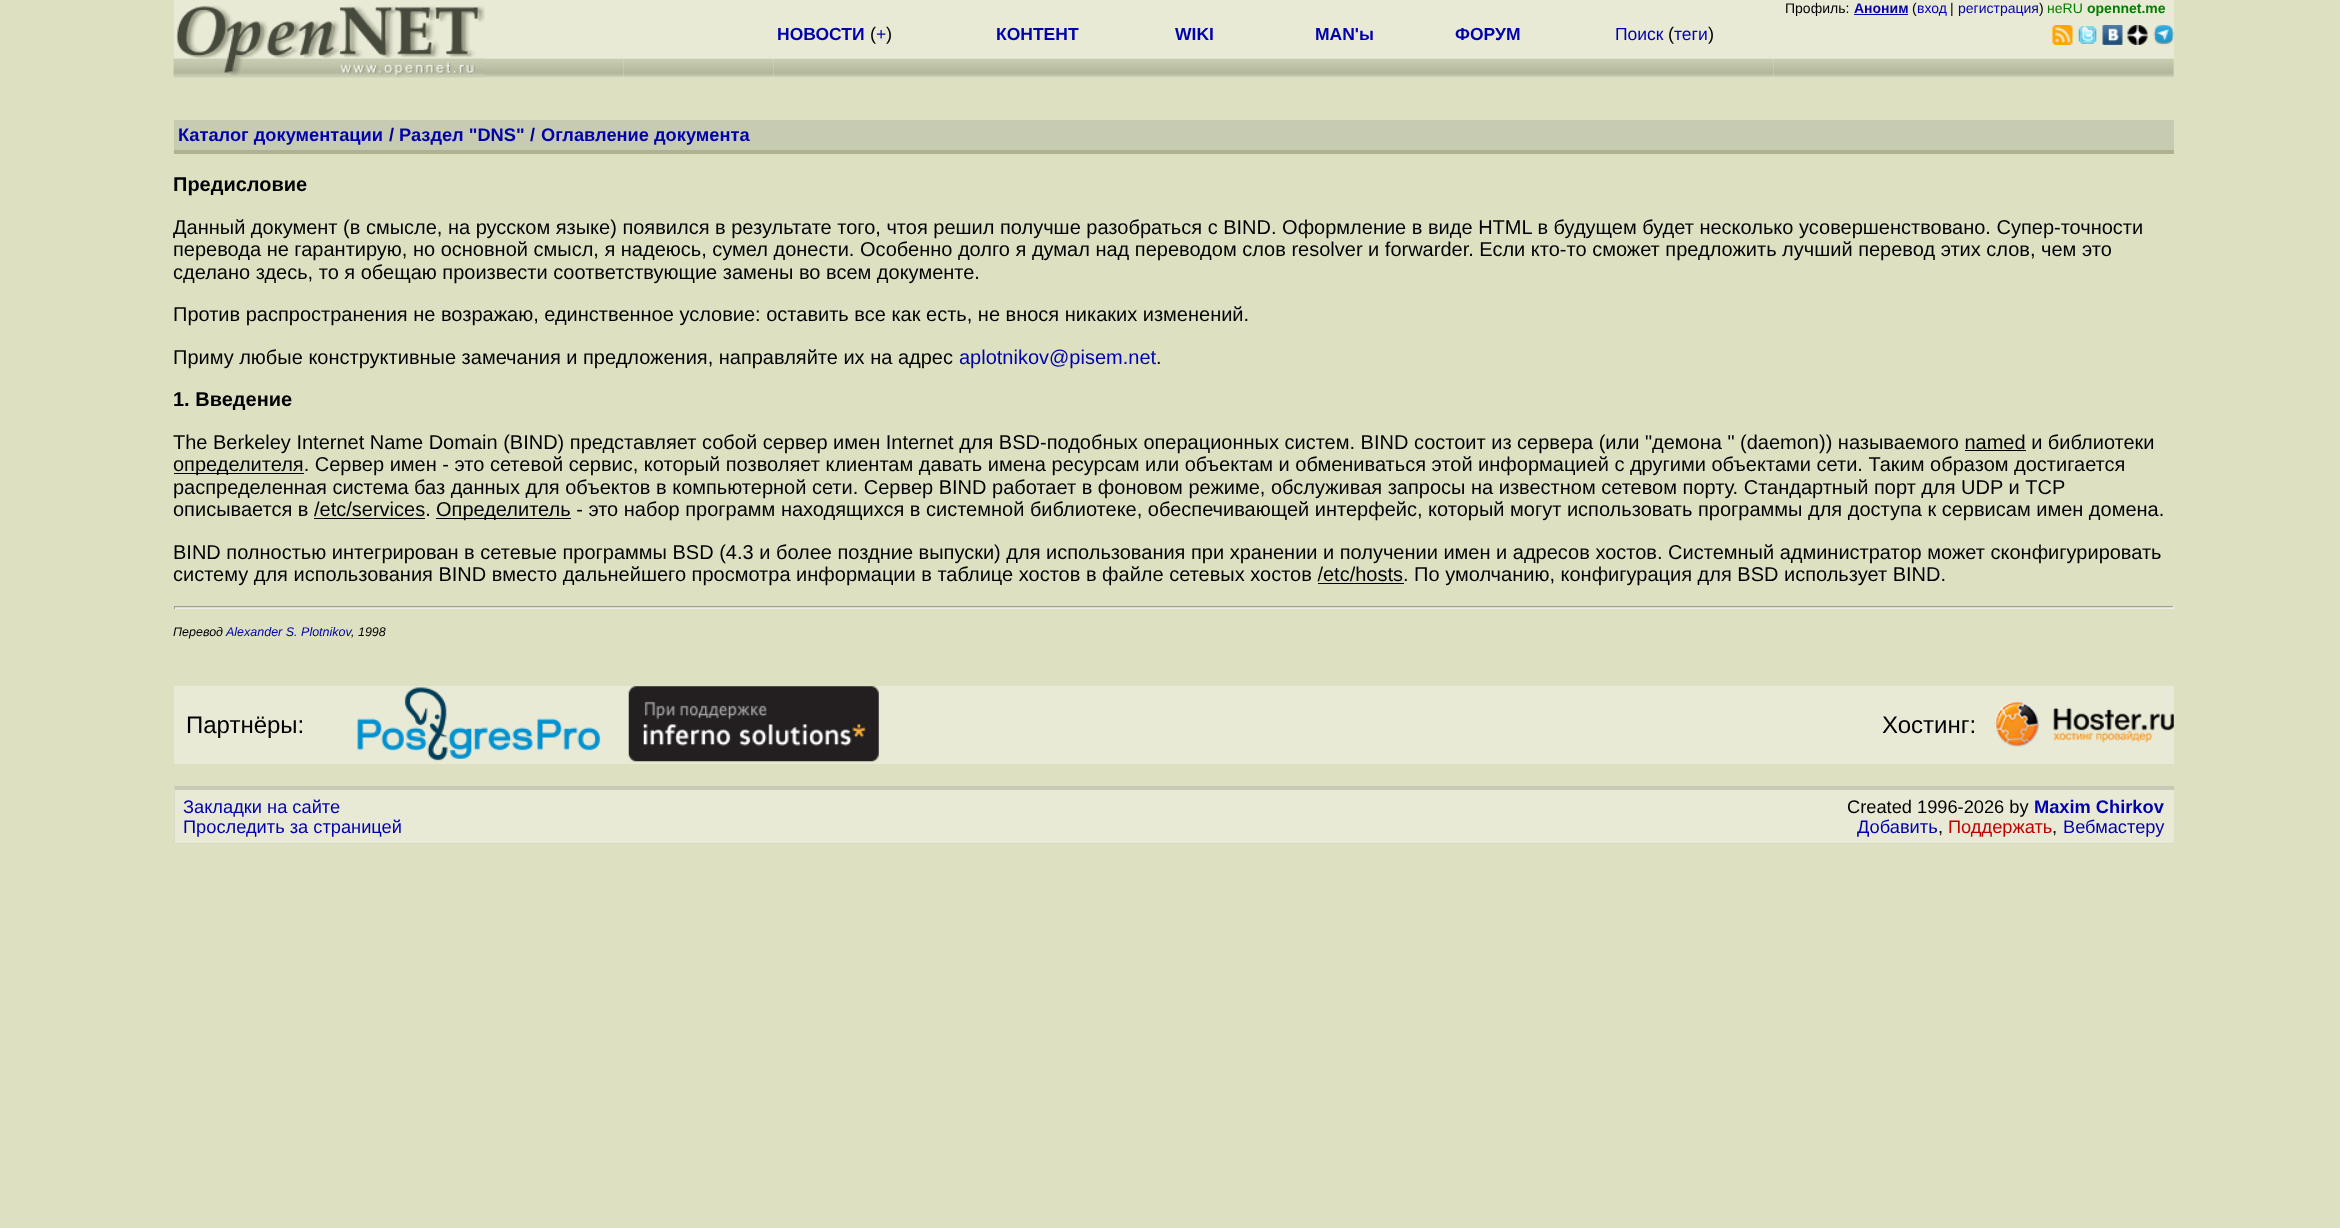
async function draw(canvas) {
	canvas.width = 2340;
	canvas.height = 1228;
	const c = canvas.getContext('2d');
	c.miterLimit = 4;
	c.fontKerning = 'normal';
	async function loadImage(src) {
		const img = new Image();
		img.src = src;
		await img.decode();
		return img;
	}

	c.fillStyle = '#dde1c2';
	c.fillRect(0, 0, 2340, 1228);
	c.fillStyle = '#e9ead6';
	c.fillRect(174, 0, 2000, 3);
	c.fillRect(174, 3, 2000, 75);
	c.font = '14px Liberation Sans';
	c.fillStyle = '#000';
	c.fillText('Профиль:', 1785, 13);
	c.font = 'bold 14px Liberation Sans';
	c.fillStyle = '#0000ad';
	c.fillText('Аноним', 1854, 13);
	c.fillRect(1854, 14, 54, 1);
	c.font = '14px Liberation Sans';
	c.fillStyle = '#000';
	c.fillText('(', 1912, 13);
	c.fillStyle = '#0000ad';
	c.fillText('вход', 1917, 13);
	c.fillStyle = '#000';
	c.fillText('|', 1950, 13);
	c.fillStyle = '#0000ad';
	c.fillText('регистрация', 1958, 13);
	c.fillStyle = '#000';
	c.fillText(')', 2039, 13);
	c.fillStyle = '#008000';
	c.fillText('неRU', 2047, 13);
	c.font = 'bold 14px Liberation Sans';
	c.fillText('opennet.me', 2087, 13);
	c.drawImage(await loadImage('img1.png'), 173, 58, 451, 20);
	c.drawImage(await loadImage('img2.png'), 173, 5, 312, 73);
	c.drawImage(await loadImage('img3.png'), 774, 58, 1000, 20);
	c.font = 'bold 17.5px Liberation Sans';
	c.fillStyle = '#0000ad';
	c.fillText('НОВОСТИ', 777, 40);
	c.font = '18.25px Liberation Sans';
	c.fillStyle = '#000';
	c.fillText('(', 870, 40);
	c.font = '17.5px Liberation Sans';
	c.fillStyle = '#0000ad';
	c.fillText('+', 876, 40);
	c.font = '18.25px Liberation Sans';
	c.fillStyle = '#000';
	c.fillText(')', 886, 40);
	c.font = 'bold 17.5px Liberation Sans';
	c.fillStyle = '#0000ad';
	for (const [text, x, y] of [
		['КОНТЕНТ', 996, 40],
		['WIKI', 1175, 40],
		['MAN\'ы', 1315, 40],
		['ФОРУМ', 1455, 40],
	]) {
		c.fillText(text, x, y);
	}
	c.font = '17.5px Liberation Sans';
	c.fillText('Поиск', 1615, 40);
	c.font = '18.25px Liberation Sans';
	c.fillStyle = '#000';
	c.fillText('(', 1668, 40);
	c.font = '17.5px Liberation Sans';
	c.fillStyle = '#0000ad';
	c.fillText('теги', 1674, 40);
	c.font = '18.25px Liberation Sans';
	c.fillStyle = '#000';
	c.fillText(')', 1708, 40);
	c.drawImage(await loadImage('img4.png'), 1774, 58, 400, 20);
	c.drawImage(await loadImage('img5.png'), 2052, 25, 21, 20);
	c.drawImage(await loadImage('img6.png'), 2078, 26, 19, 18);
	c.drawImage(await loadImage('img7.png'), 2102, 25, 21, 20);
	c.drawImage(await loadImage('img8.png'), 2127, 25, 21, 20);
	c.drawImage(await loadImage('img9.png'), 2153, 25, 21, 20);
	c.drawImage(await loadImage('img10.png'), 624, 58, 150, 20);
	c.fillStyle = '#c7cbb1';
	c.fillRect(174, 120, 2000, 30);
	c.font = 'bold 18.25px Liberation Sans';
	c.fillStyle = '#0000ad';
	c.fillText('Каталог документации', 178, 141);
	c.fillStyle = '#000090';
	c.fillText('/', 389, 141);
	c.fillStyle = '#0000ad';
	c.fillText('Раздел "DNS"', 399, 141);
	c.fillStyle = '#000090';
	c.fillText('/', 530, 141);
	c.fillStyle = '#0000ad';
	c.fillText('Оглавление документа', 541, 141);
	c.fillStyle = '#b0b190';
	c.fillRect(174, 150, 2000, 4);
	c.font = 'bold 20px Liberation Sans';
	c.fillStyle = '#000';
	c.fillText('Предисловие', 173, 191);
	c.font = '20px Liberation Sans';
	for (const [text, x, y] of [
		['Данный документ (в смысле, на русском языке) появился в результате того, чтоя решил получше разобраться с BIND. Оформление в виде HTML в будущем будет несколько усовершенствовано. Супер-точности', 173, 234],
		['перевода не гарантирую, но основной смысл, я надеюсь, сумел донести. Особенно долго я думал над переводом слов resolver и forwarder. Если кто-то сможет предложить лучший перевод этих слов, чем это', 173, 256],
		['сделано здесь, то я обещаю произвести соответствующие замены во всем документе.', 173, 279],
		['Против распространения не возражаю, единственное условие: оставить все как есть, не внося никаких изменений.', 173, 321],
		['Приму любые конструктивные замечания и предложения, направляйте их на адрес', 173, 364],
	]) {
		c.fillText(text, x, y);
	}
	c.fillStyle = '#0000ad';
	c.fillText('aplotnikov@pisem.net', 959, 364);
	c.fillStyle = '#000';
	c.fillText('.', 1156, 364);
	c.font = 'bold 20px Liberation Sans';
	c.fillText('1. Введение', 173, 406);
	c.font = '20px Liberation Sans';
	c.fillText('The Berkeley Internet Name Domain (BIND) представляет собой сервер имен Internet для BSD-подобных операционных систем. BIND состоит из сервера (или "демона " (daemon)) называемого named и библиотеки', 173, 449);
	c.fillRect(1965, 450, 61, 1);
	c.fillRect(174, 473, 130, 1);
	for (const [text, x, y] of [
		['определителя. Сервер имен - это сетевой сервис, который позволяет клиентам давать имена ресурсам или объектам и обмениваться этой информацией с другими объектами сети. Таким образом достигается', 173, 471],
		['распределенная система баз данных для объектов в компьютерной сети. Сервер BIND работает в фоновом режиме, обслуживая запросы на известном сетевом порту. Стандартный порт для UDP и TCP', 173, 494],
		['описывается в /etc/services.', 173, 516],
	]) {
		c.fillText(text, x, y);
	}
	c.fillRect(436, 518, 135, 1);
	c.fillText('Определитель - это набор программ находящихся в системной библиотеке, обеспечивающей интерфейс, который могут использовать программы для доступа к сервисам имен домена.', 436, 516);
	c.fillRect(314, 518, 111, 1);
	c.fillText('BIND полностью интегрирован в сетевые программы BSD (4.3 и более поздние выпуски) для использования при хранении и получении имен и адресов хостов. Системный администратор может сконфигурировать', 173, 559);
	c.fillText('систему для использования BIND вместо дальнейшего просмотра информации в таблице хостов в файле сетевых хостов /etc/hosts. По умолчанию, конфигурация для BSD использует BIND.', 173, 581);
	for (const [x, y, w, h, color] of [
		[1318, 583, 86, 1, '#000'],
		[174, 606, 2000, 1, '#9f9f9f'],
		[2173, 606, 1, 3, '#eee'],
		[174, 608, 2000, 1, '#eee'],
		[174, 606, 1, 3, '#9f9f9f'],
	]) {
		c.fillStyle = color;
		c.fillRect(x, y, w, h);
	}
	c.font = 'italic 12.5px Liberation Sans';
	c.fillStyle = '#000';
	c.fillText('Перевод', 173, 636);
	c.fillStyle = '#0000ad';
	c.fillText('Alexander S. Plotnikov', 226, 636);
	c.fillStyle = '#000';
	c.fillText(', 1998', 351, 636);
	c.fillStyle = '#e9ead6';
	c.fillRect(174, 686, 2000, 78);
	c.font = '24px Liberation Sans';
	c.fillStyle = '#000';
	c.fillText('Партнёры:', 186, 733);
	c.drawImage(await loadImage('img11.png'), 357, 687, 244, 74);
	c.drawImage(await loadImage('img12.png'), 628, 686, 251, 76);
	c.fillText('Хостинг:', 1882, 733);
	c.drawImage(await loadImage('img13.png'), 1995, 701, 179, 46);
	c.fillStyle = '#e9ead6';
	c.fillRect(174, 786, 2000, 57);
	c.fillStyle = '#c9cab6';
	c.beginPath();
	c.moveTo(174, 786);
	c.lineTo(2174, 786);
	c.lineTo(2174, 790);
	c.lineTo(175, 790);
	c.closePath();
	c.fill();
	c.fillStyle = '#d9dac6';
	c.fillRect(174, 843, 2000, 1);
	c.beginPath();
	c.moveTo(174, 844);
	c.lineTo(174, 786);
	c.lineTo(175, 790);
	c.lineTo(175, 842);
	c.closePath();
	c.fill();
	c.font = '18.25px Liberation Sans';
	c.fillStyle = '#0000ad';
	c.fillText('Закладки на сайте', 183, 813);
	c.fillText('Проследить за страницей', 183, 833);
	c.fillStyle = '#000';
	c.fillText('Created 1996-2026 by', 1847, 813);
	c.font = 'bold 18.25px Liberation Sans';
	c.fillStyle = '#0000ad';
	c.fillText('Maxim Chirkov', 2034, 813);
	c.font = '18.25px Liberation Sans';
	c.fillText('Добавить', 1857, 833);
	c.fillStyle = '#000';
	c.fillText(',', 1938, 833);
	c.fillStyle = '#c00000';
	c.fillText('Поддержать', 1948, 833);
	c.fillStyle = '#000';
	c.fillText(',', 2052, 833);
	c.fillStyle = '#0000ad';
	c.fillText('Вебмастеру', 2063, 833);
}

draw(document.querySelector('canvas'));
